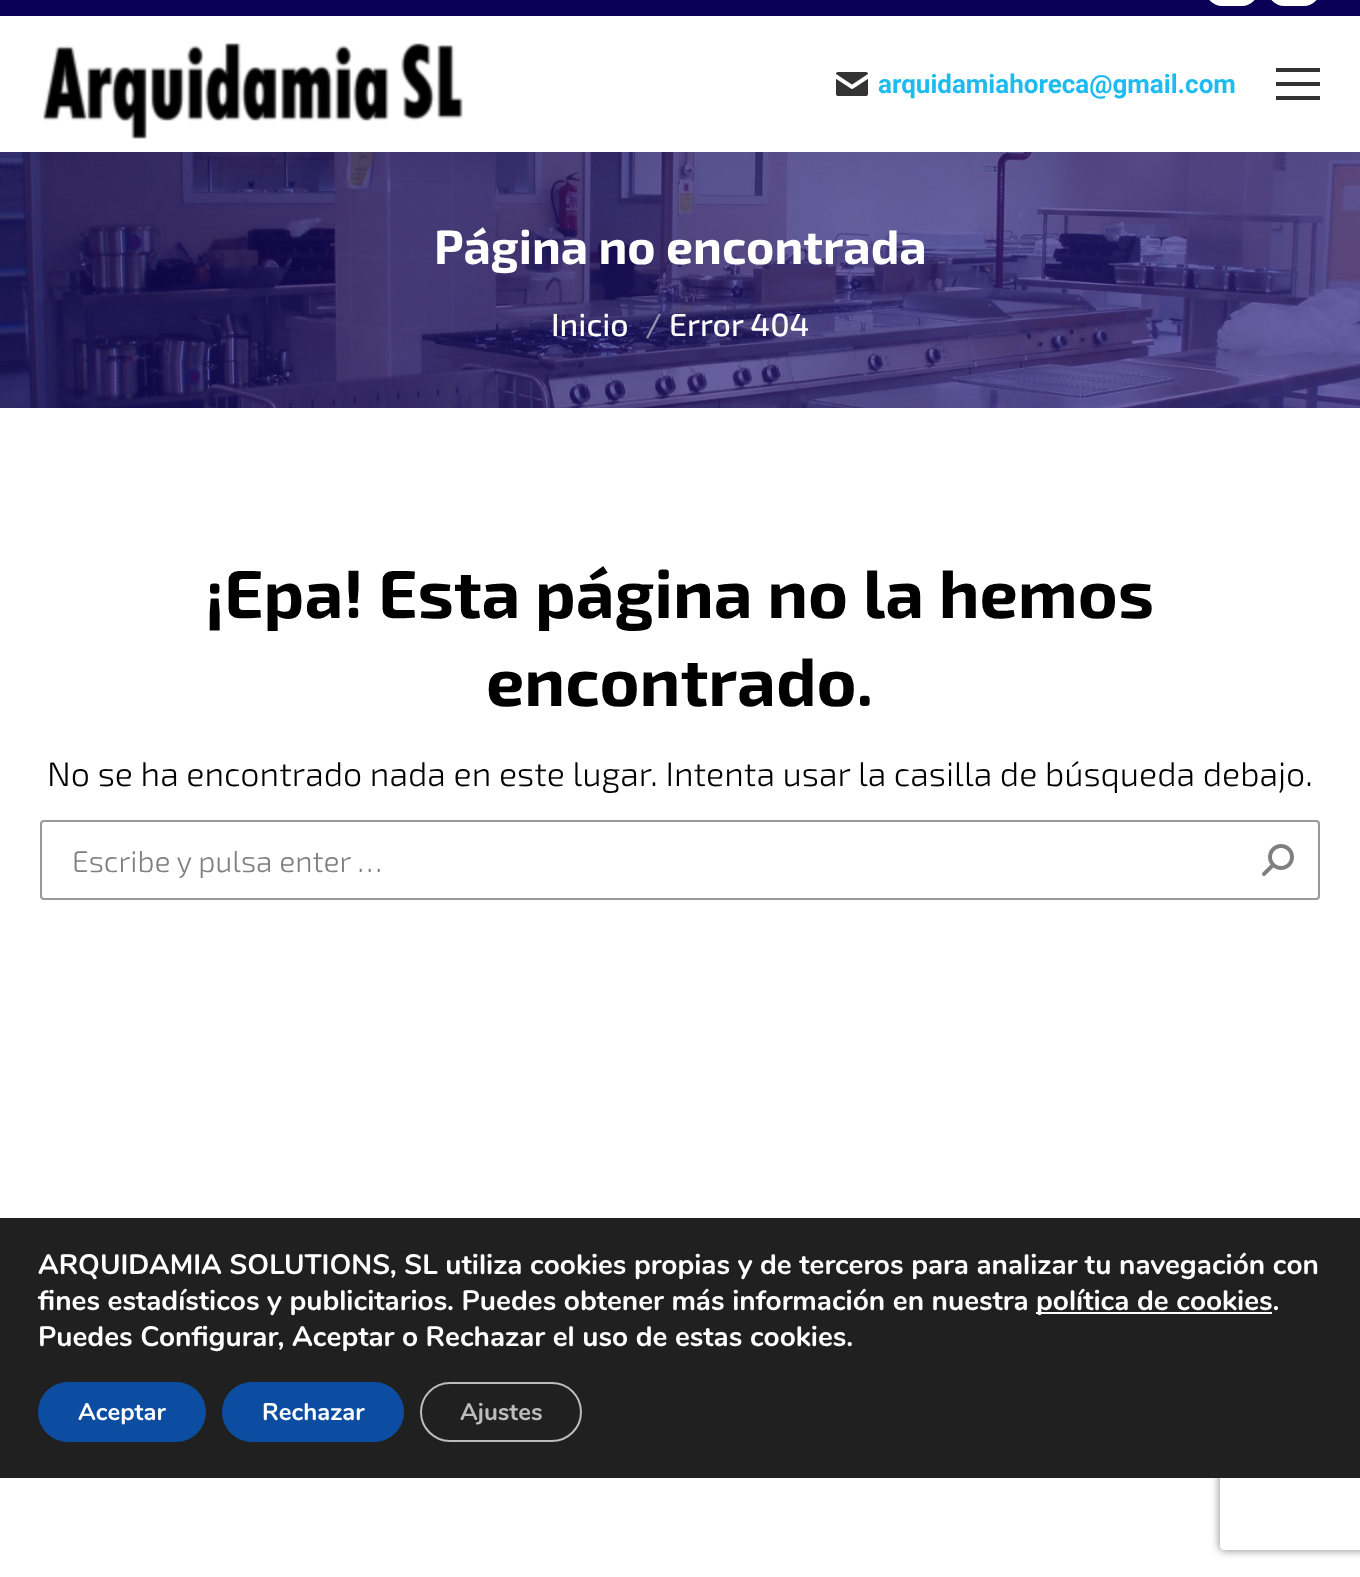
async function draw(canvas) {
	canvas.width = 1360;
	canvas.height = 1577;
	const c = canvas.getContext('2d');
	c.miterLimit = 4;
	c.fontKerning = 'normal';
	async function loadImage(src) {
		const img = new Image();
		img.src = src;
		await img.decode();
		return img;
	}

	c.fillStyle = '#fff';
	c.fillRect(0, 0, 1360, 1577);
	c.fillStyle = '#0a0057';
	c.fillRect(0, 0, 1360, 16);
	c.fillStyle = '#fff';
	c.beginPath();
	c.roundRect(1206, -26, 52, 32, 26);
	c.fill();
	c.beginPath();
	c.roundRect(1268, -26, 52, 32, 26);
	c.fill();
	c.drawImage(await loadImage('img1.png'), 43, 42, 420, 97);
	c.drawImage(await loadImage('img2.png'), 836, 72, 32, 24);
	c.font = 'bold 26px Roboto';
	c.fillStyle = '#1ebbf0';
	c.fillText('arquidamiahoreca@gmail.com', 878, 93);
	for (const [x, y, w, h, color] of [
		[1276, 82, 44, 4, '#333'],
		[1276, 68, 44, 4, '#333'],
		[1276, 96, 44, 4, '#333'],
	]) {
		c.fillStyle = color;
		c.fillRect(x, y, w, h);
	}
	c.drawImage(await loadImage('img3.png'), 0, 152, 1360, 256);
	c.font = 'bold 48px "Exo 2"';
	c.fillStyle = '#fff';
	c.fillText('Página no encontrada', 434, 264);
	c.font = '500 32px "Exo 2"';
	c.fillText('Inicio', 551, 336);
	c.fillStyle = '#9490af';
	c.fillText('/', 645, 336);
	c.fillStyle = '#fff';
	c.fillText('Error 404', 669, 336);
	c.font = 'bold 68px "Exo 2"';
	c.fillStyle = '#000';
	c.fillText('¡Epa! Esta página no la hemos', 205, 618);
	c.fillText('encontrado.', 486, 706);
	c.font = '300 34px "Exo 2"';
	c.fillText('No se ha encontrado nada en este lugar. Intenta usar la casilla de búsqueda debajo.', 47, 786);
	c.beginPath();
	c.roundRect(41, 821, 1278, 78, 3);
	c.strokeStyle = '#999';
	c.lineWidth = 2;
	c.stroke();
	c.save();
	c.beginPath();
	c.rect(72, 842, 1186, 36);
	c.clip();
	c.font = '300 30px "Exo 2"';
	c.fillStyle = '#7f7f7f';
	c.fillText('Escribe y pulsa enter …', 72, 872);
	c.restore();
	c.drawImage(await loadImage('img4.png'), 1262, 844, 32, 32);
	c.save();
	c.beginPath();
	c.moveTo(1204, 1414);
	c.lineTo(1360, 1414);
	c.lineTo(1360, 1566);
	c.lineTo(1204, 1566);
	c.closePath();
	c.moveTo(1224, 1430);
	c.lineTo(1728, 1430);
	c.bezierCurveTo(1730, 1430, 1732, 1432, 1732, 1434);
	c.lineTo(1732, 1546);
	c.bezierCurveTo(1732, 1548, 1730, 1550, 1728, 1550);
	c.lineTo(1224, 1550);
	c.bezierCurveTo(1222, 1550, 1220, 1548, 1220, 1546);
	c.lineTo(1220, 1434);
	c.bezierCurveTo(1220, 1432, 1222, 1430, 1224, 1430);
	c.closePath();
	c.clip('evenodd');
	c.fillStyle = '#808080';
	c.filter = 'blur(5px)';
	c.beginPath();
	c.roundRect(1220, 1430, 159, 120, 4);
	c.fill();
	c.filter = 'none';
	c.restore();
	c.fillStyle = '#202020';
	c.fillRect(0, 1218, 1360, 260);
	c.font = 'bold 28px Nunito';
	c.fillStyle = '#fff';
	c.fillText('ARQUIDAMIA SOLUTIONS, SL utiliza cookies propias y de terceros para analizar tu navegación con', 38, 1274);
	c.fillText('fines estadísticos y publicitarios. Puedes obtener más información en nuestra', 38, 1310);
	c.fillRect(1036, 1312, 236, 2);
	c.fillText('política de cookies.', 1036, 1310);
	c.fillText('Puedes Configurar, Aceptar o Rechazar el uso de estas cookies.', 38, 1346);
	c.fillStyle = '#0c4da2';
	c.beginPath();
	c.roundRect(38, 1382, 168, 60, 30);
	c.fill();
	c.font = 'bold 24px Nunito';
	c.fillStyle = '#fff';
	c.fillText('Aceptar', 78, 1420);
	c.fillStyle = '#0c4da2';
	c.beginPath();
	c.roundRect(222, 1382, 182, 60, 30);
	c.fill();
	c.fillStyle = '#fff';
	c.fillText('Rechazar', 262, 1420);
	c.beginPath();
	c.roundRect(421, 1383, 160, 58, 29);
	c.strokeStyle = '#bcbcbc';
	c.stroke();
	c.fillStyle = '#bcbcbc';
	c.fillText('Ajustes', 460, 1420);
}

draw(document.querySelector('canvas'));
